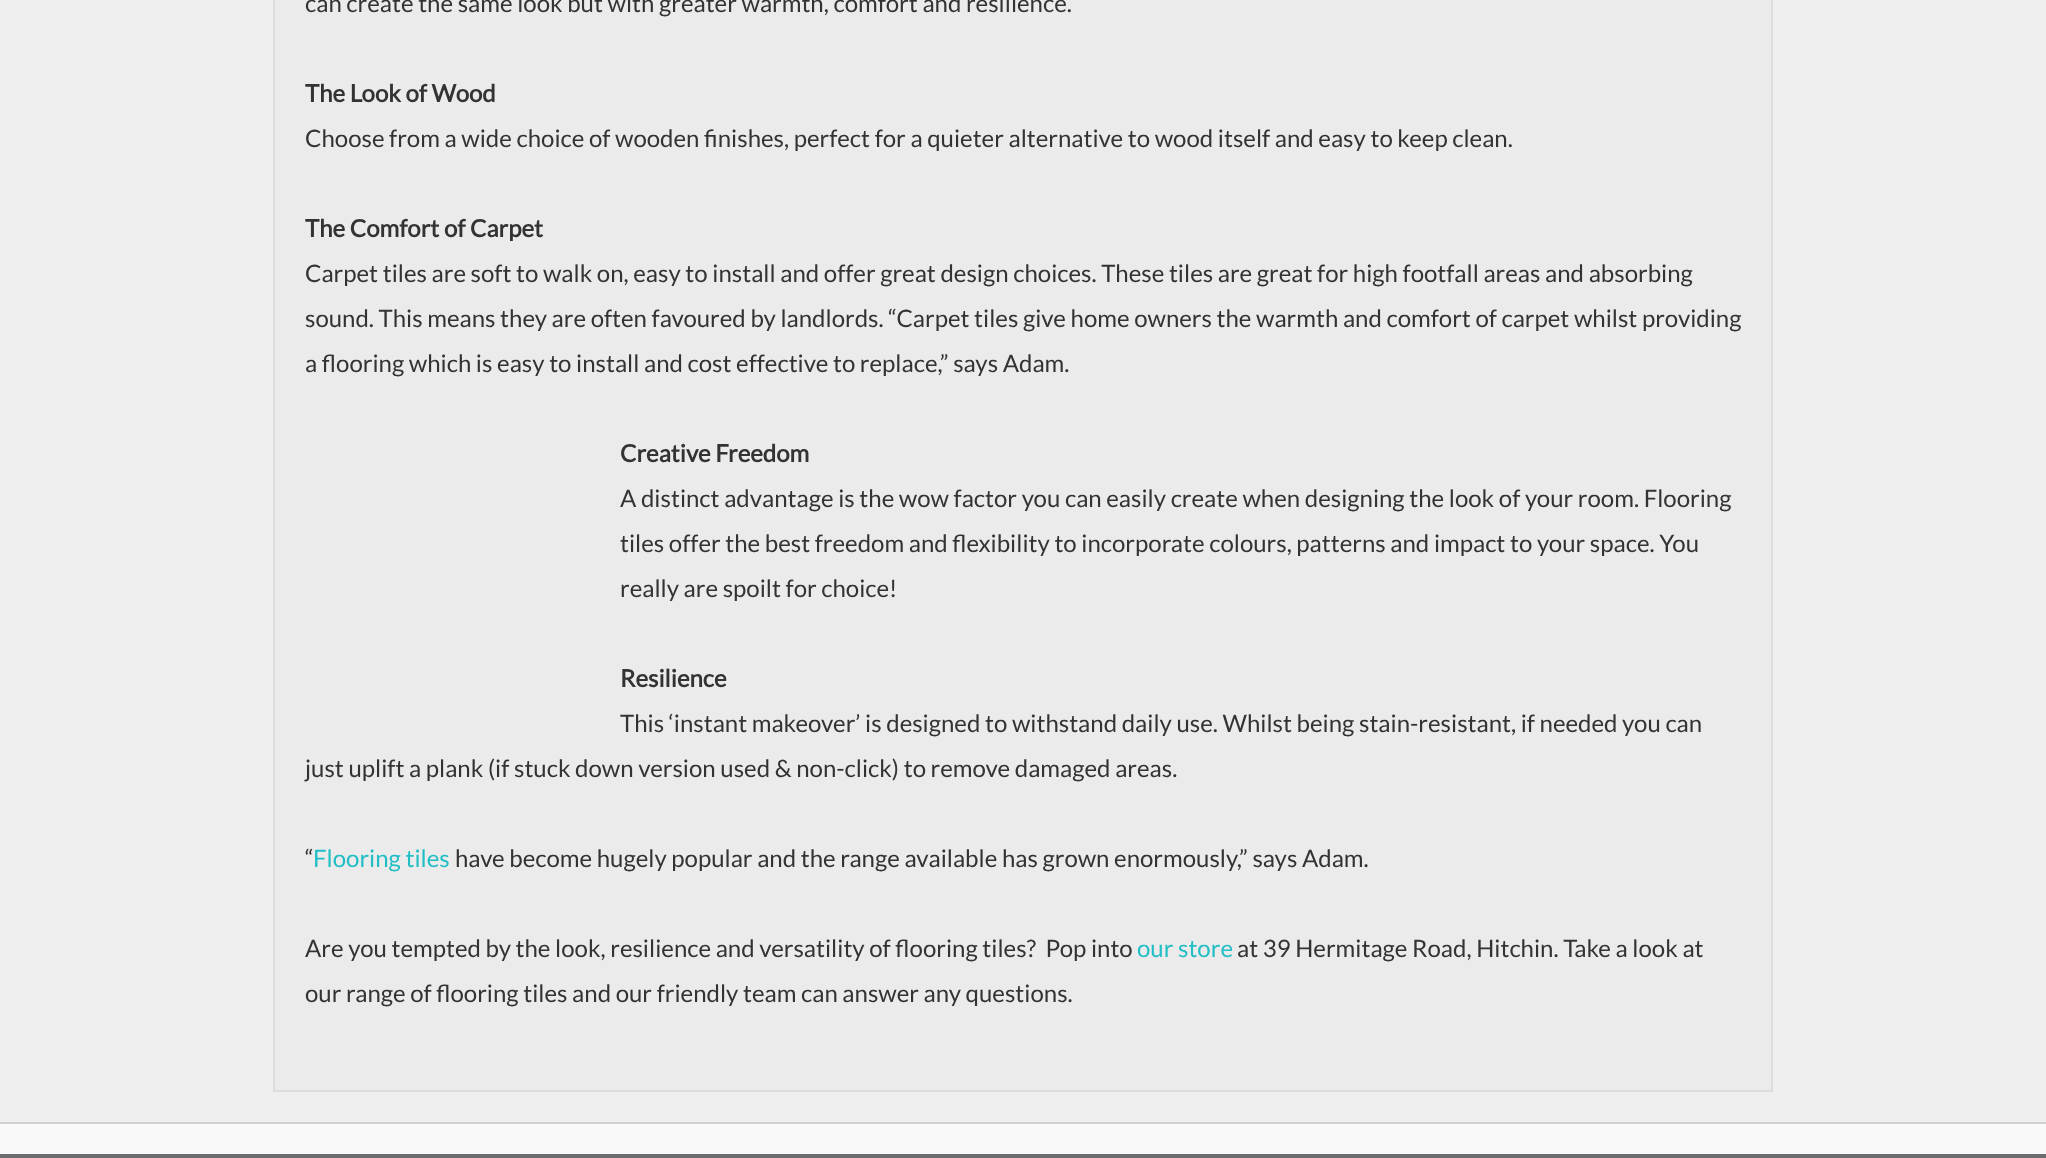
async function draw(canvas) {
	canvas.width = 2046;
	canvas.height = 1158;
	const c = canvas.getContext('2d');
	c.miterLimit = 4;
	c.fontKerning = 'normal';

	c.fillStyle = '#f9f9f9';
	c.fillRect(0, 0, 2046, 1158);
	c.fillStyle = '#efefef';
	c.fillRect(0, 0, 2046, 1122);
	c.fillStyle = '#d0d0d0';
	c.fillRect(0, 1122, 2046, 2);
	c.fillStyle = '#ecebeb';
	c.beginPath();
	c.rect(274, -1, 1498, 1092);
	c.fill();
	c.strokeStyle = '#ddd';
	c.lineWidth = 2;
	c.stroke();
	c.font = '24px Lato';
	c.fillStyle = '#333';
	c.fillText('can create the same look but with greater warmth, comfort and resilience.”', 305, 12);
	c.font = 'bold 24px Lato';
	c.fillText('The Look of Wood', 305, 102);
	c.font = '24px Lato';
	c.fillText('Choose from a wide choice of wooden finishes, perfect for a quieter alternative to wood itself and easy to keep clean.', 305, 147);
	c.font = 'bold 24px Lato';
	c.fillText('The Comfort of Carpet', 305, 237);
	c.font = '24px Lato';
	for (const [text, x, y] of [
		['Carpet tiles are soft to walk on, easy to install and offer great design choices. These tiles are great for high footfall areas and absorbing', 305, 282],
		['sound. This means they are often favoured by landlords. “Carpet tiles give home owners the warmth and comfort of carpet whilst providing', 305, 327],
		['a flooring which is easy to install and cost effective to replace,” says Adam.', 305, 372],
	]) {
		c.fillText(text, x, y);
	}
	c.font = 'bold 24px Lato';
	c.fillText('Creative Freedom', 620, 462);
	c.font = '24px Lato';
	for (const [text, x, y] of [
		['A distinct advantage is the wow factor you can easily create when designing the look of your room. Flooring', 620, 507],
		['tiles offer the best freedom and flexibility to incorporate colours, patterns and impact to your space. You', 620, 552],
		['really are spoilt for choice!', 620, 597],
	]) {
		c.fillText(text, x, y);
	}
	c.font = 'bold 24px Lato';
	c.fillText('Resilience', 620, 687);
	c.font = '24px Lato';
	for (const [text, x, y] of [
		['This ‘instant makeover’ is designed to withstand daily use. Whilst being stain-resistant, if needed you can', 620, 732],
		['just uplift a plank (if stuck down version used & non-click) to remove damaged areas.', 305, 777],
		['“', 305, 867],
	]) {
		c.fillText(text, x, y);
	}
	c.fillStyle = '#20bec5';
	c.fillText('Flooring tiles', 313, 867);
	c.fillStyle = '#333';
	c.fillText('have become hugely popular and the range available has grown enormously,” says Adam.', 455, 867);
	c.fillText('Are you tempted by the look, resilience and versatility of flooring tiles?  Pop into', 305, 957);
	c.fillStyle = '#20bec5';
	c.fillText('our store', 1137, 957);
	c.fillStyle = '#333';
	c.fillText('at 39 Hermitage Road, Hitchin. Take a look at', 1237, 957);
	c.fillText('our range of flooring tiles and our friendly team can answer any questions.', 305, 1002);
	c.fillStyle = '#6d6e71';
	c.fillRect(0, 1154, 2046, 4);
}

draw(document.querySelector('canvas'));
